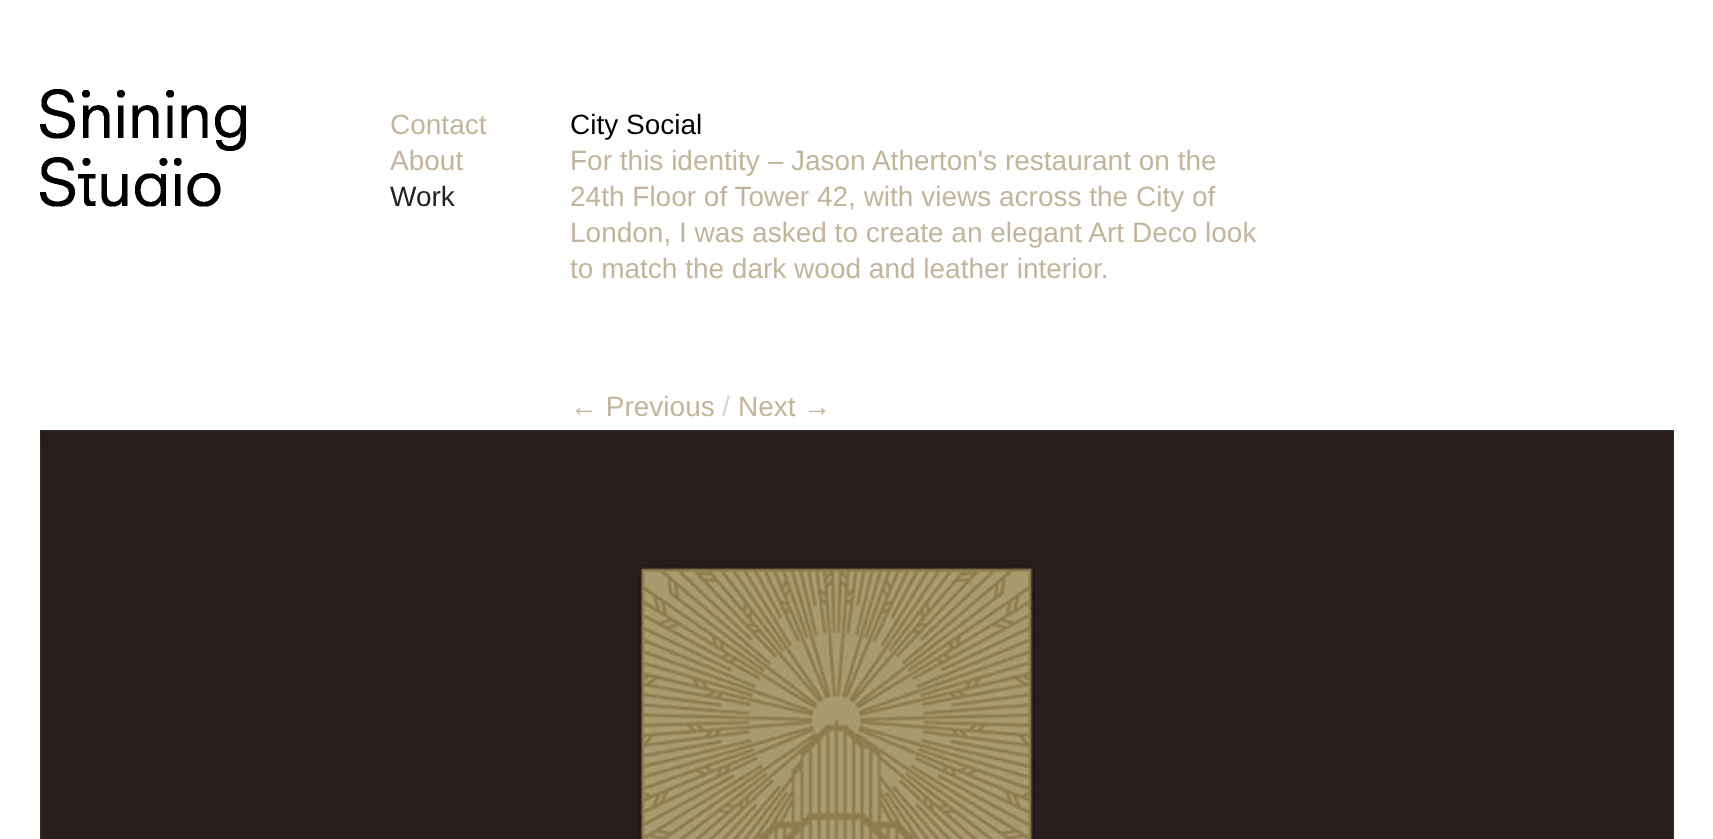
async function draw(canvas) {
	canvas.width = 1713;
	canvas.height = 839;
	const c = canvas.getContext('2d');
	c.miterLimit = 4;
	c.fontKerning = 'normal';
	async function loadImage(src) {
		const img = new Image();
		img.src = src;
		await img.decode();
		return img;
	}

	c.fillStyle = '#fff';
	c.fillRect(0, 0, 1713, 839);
	c.drawImage(await loadImage('img1.png'), 40, 89, 206, 118);
	c.font = '28px Liberation Sans';
	c.fillStyle = '#c2b59b';
	c.fillText('Contact', 390, 134);
	c.fillText('About', 390, 170);
	c.fillStyle = '#231f20';
	c.fillText('Work', 390, 206);
	c.fillStyle = '#000';
	c.fillText('City Social', 570, 134);
	c.fillStyle = '#c2b59b';
	for (const [text, x, y] of [
		['For this identity – Jason Atherton\'s restaurant on the', 570, 170],
		['24th Floor of Tower 42, with views across the City of', 570, 206],
		['London, I was asked to create an elegant Art Deco look', 570, 242],
		['to match the dark wood and leather interior.', 570, 278],
		['← Previous', 570, 416],
	]) {
		c.fillText(text, x, y);
	}
	c.fillStyle = '#d1d3d4';
	c.fillText('/', 722, 416);
	c.fillStyle = '#c2b59b';
	c.fillText('Next →', 738, 416);
	c.drawImage(await loadImage('img2.png'), 40, 430, 1634, 409);
}

draw(document.querySelector('canvas'));
